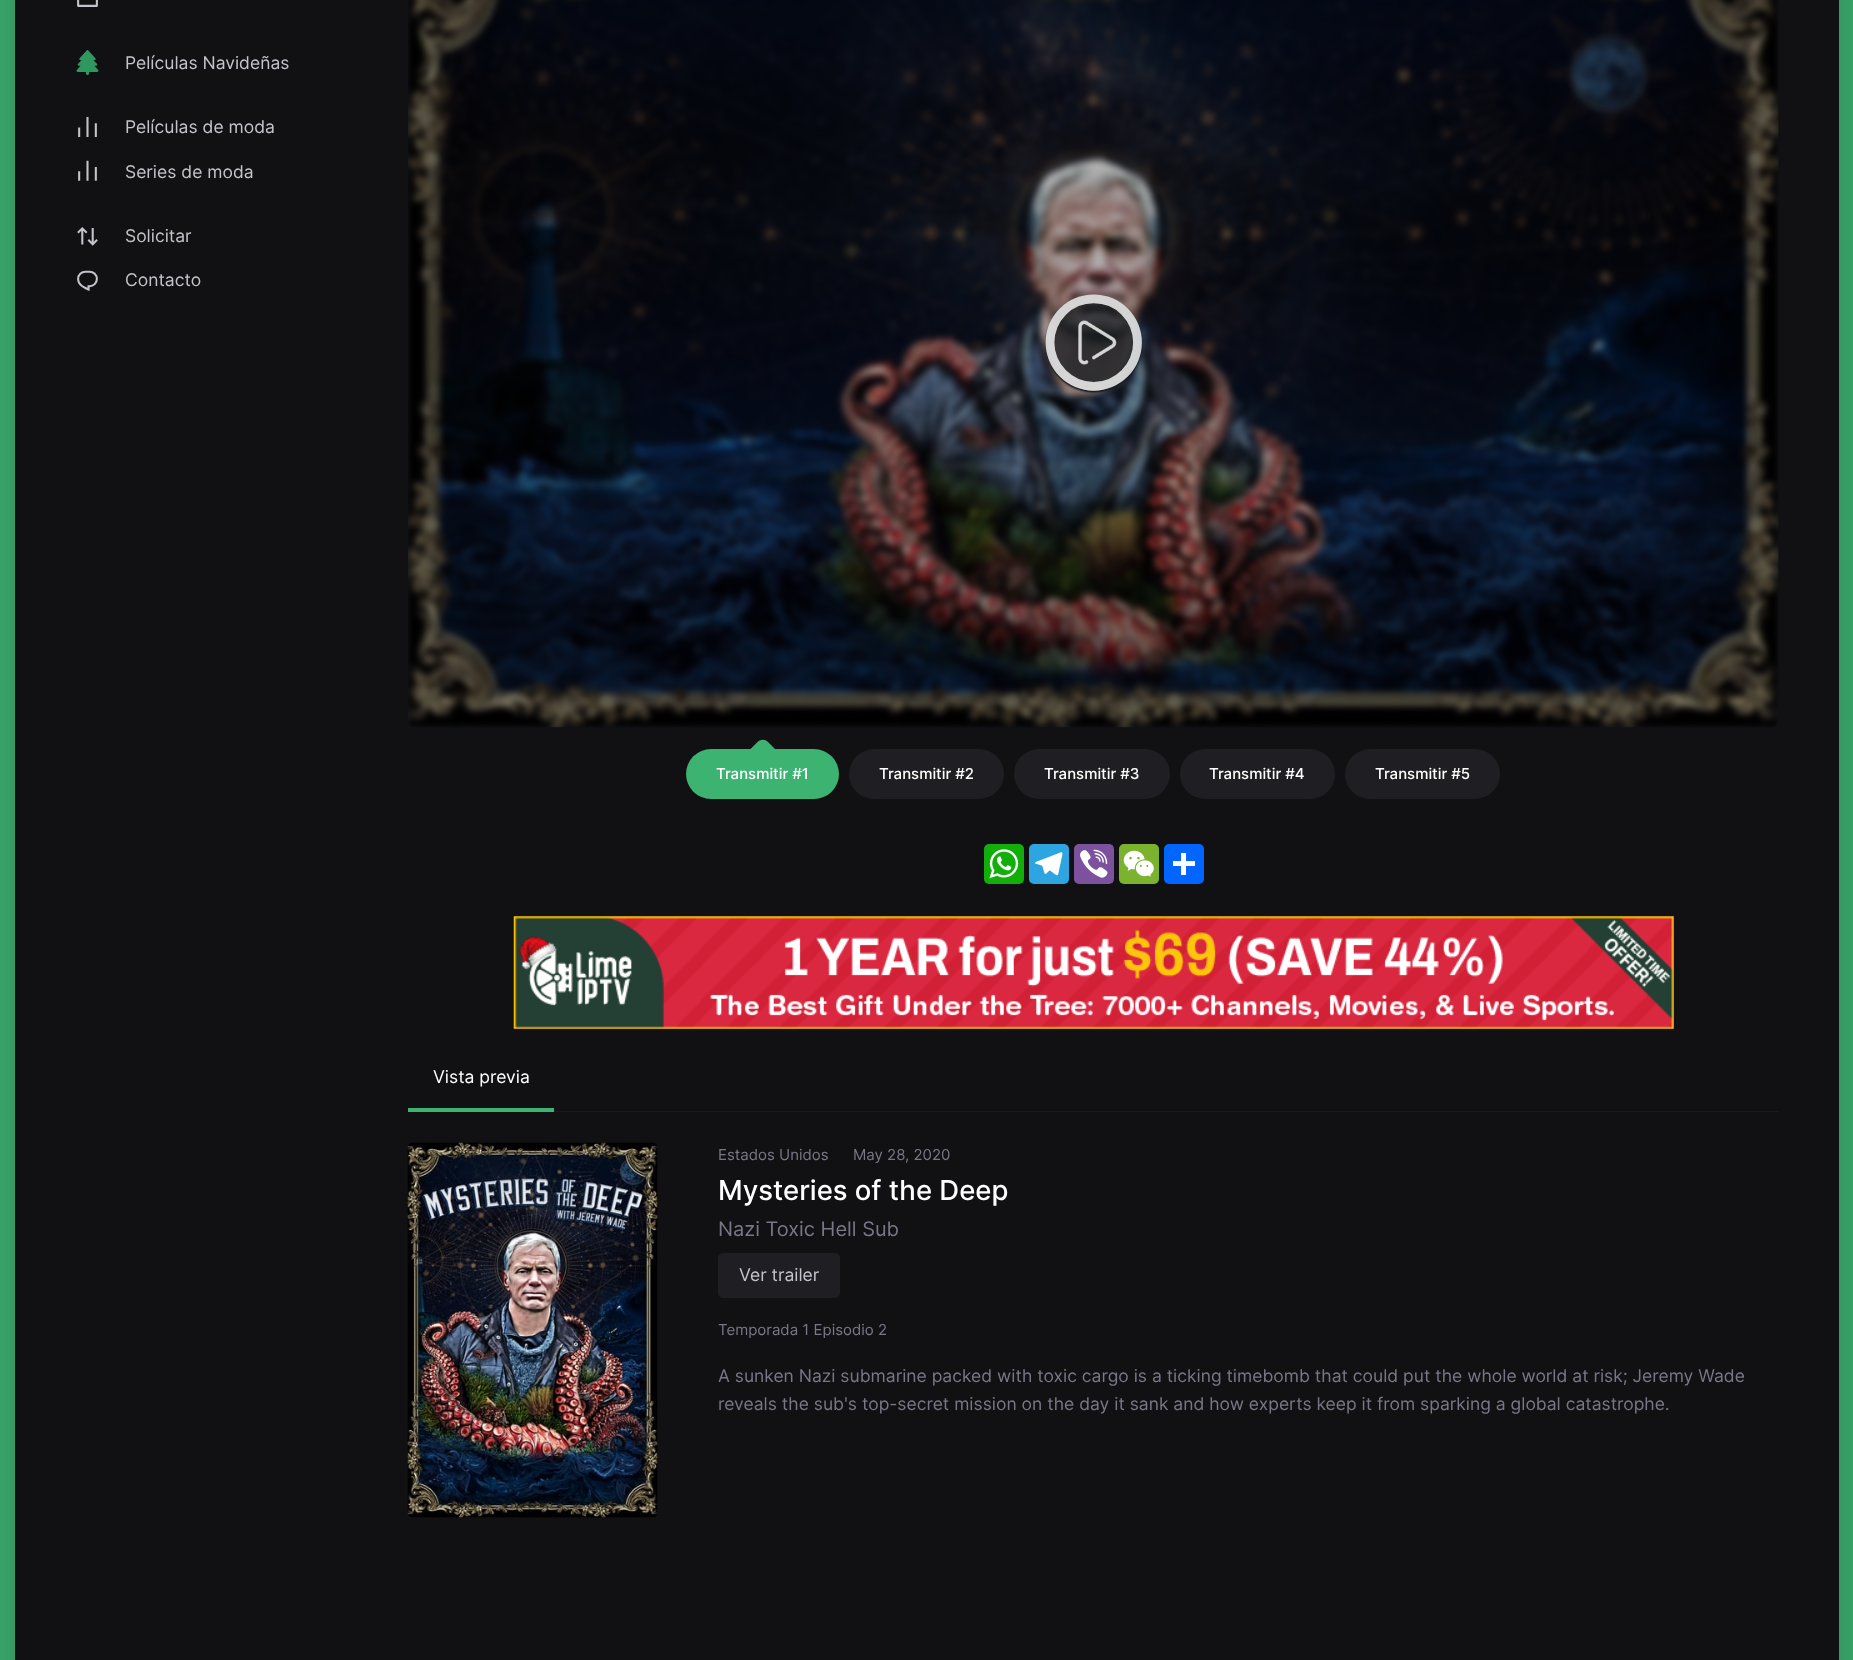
async function draw(canvas) {
	canvas.width = 1853;
	canvas.height = 1660;
	const c = canvas.getContext('2d');
	c.miterLimit = 4;
	c.fontKerning = 'normal';
	async function loadImage(src) {
		const img = new Image();
		img.src = src;
		await img.decode();
		return img;
	}

	c.fillStyle = '#3cb371';
	c.fillRect(0, 0, 1853, 1660);
	c.fillStyle = '#1111134d';
	c.filter = 'blur(37.5px)';
	c.beginPath();
	c.roundRect(15, -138, 1824, 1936, 25);
	c.fill();
	c.filter = 'none';
	c.fillStyle = '#111113';
	c.fillRect(15, 0, 1824, 1660);
	c.drawImage(await loadImage('img1.png'), 77, 0, 21, 7);
	c.drawImage(await loadImage('img2.png'), 76, 50, 23, 25);
	c.font = '17.5px Inter';
	c.fillStyle = '#c3c3cb';
	c.fillText('Películas Navideñas', 125, 69);
	c.drawImage(await loadImage('img3.png'), 78, 117, 19, 20);
	c.fillText('Películas de moda', 125, 133);
	c.drawImage(await loadImage('img4.png'), 78, 160, 19, 21);
	c.fillText('Series de moda', 125, 178);
	c.drawImage(await loadImage('img5.png'), 77, 227, 21, 19);
	c.fillText('Solicitar', 125, 242);
	c.drawImage(await loadImage('img6.png'), 77, 270, 21, 21);
	c.fillText('Contacto', 125, 286);
	c.drawImage(await loadImage('img7.png'), 408, 0, 1371, 728);
	c.fillStyle = '#3cb371';
	c.beginPath();
	c.moveTo(768, 742);
	c.lineTo(775, 749);
	c.bezierCurveTo(778, 752, 778, 756.5, 775, 759.5);
	c.lineTo(768, 766.5);
	c.bezierCurveTo(765, 769.5, 760.5, 769.5, 757.5, 766.5);
	c.lineTo(750.5, 759.5);
	c.bezierCurveTo(747.5, 756.5, 747.5, 752, 750.5, 749);
	c.lineTo(757.5, 742);
	c.bezierCurveTo(760.5, 739, 765, 739, 768, 742);
	c.closePath();
	c.fill();
	c.beginPath();
	c.roundRect(686, 749, 153, 50, 25);
	c.fill();
	c.font = '500 15px Inter';
	c.fillStyle = '#fff';
	c.fillText('Transmitir #1', 716, 779);
	c.fillStyle = '#1f1f23';
	c.beginPath();
	c.roundRect(849, 749, 155, 50, 25);
	c.fill();
	c.fillStyle = '#fff';
	c.fillText('Transmitir #2', 879, 779);
	c.fillStyle = '#1f1f23';
	c.beginPath();
	c.roundRect(1014, 749, 156, 50, 25);
	c.fill();
	c.fillStyle = '#fff';
	c.fillText('Transmitir #3', 1044, 779);
	c.fillStyle = '#1f1f23';
	c.beginPath();
	c.roundRect(1180, 749, 155, 50, 25);
	c.fill();
	c.fillStyle = '#fff';
	c.fillText('Transmitir #4', 1209, 779);
	c.fillStyle = '#1f1f23';
	c.beginPath();
	c.roundRect(1345, 749, 155, 50, 25);
	c.fill();
	c.fillStyle = '#fff';
	c.fillText('Transmitir #5', 1375, 779);
	c.fillStyle = '#12af0a';
	c.beginPath();
	c.roundRect(984, 844, 40, 40, 5);
	c.fill();
	c.drawImage(await loadImage('img8.png'), 989, 849, 30, 30);
	c.fillStyle = '#2ca5e0';
	c.beginPath();
	c.roundRect(1029, 844, 40, 40, 5);
	c.fill();
	c.drawImage(await loadImage('img9.png'), 1035, 852, 28, 24);
	c.fillStyle = '#7c529e';
	c.beginPath();
	c.roundRect(1074, 844, 40, 40, 5);
	c.fill();
	c.drawImage(await loadImage('img10.png'), 1080, 849, 28, 29);
	c.fillStyle = '#7bb32e';
	c.beginPath();
	c.roundRect(1119, 844, 40, 40, 5);
	c.fill();
	c.drawImage(await loadImage('img11.png'), 1123, 850, 31, 27);
	c.fillStyle = '#0166ff';
	c.beginPath();
	c.roundRect(1164, 844, 40, 40, 5);
	c.fill();
	c.fillStyle = '#fff';
	c.fillRect(1181, 853, 5, 22);
	c.fillRect(1173, 861, 22, 5);
	c.drawImage(await loadImage('img12.png'), 513, 916, 1161, 113);
	c.fillStyle = '#1a1a1e';
	c.fillRect(554, 1111, 1225, 1);
	c.font = '17.5px Inter';
	c.fillStyle = '#fff';
	c.fillText('Vista previa', 433, 1083);
	c.fillStyle = '#3cb371';
	c.fillRect(408, 1108, 146, 4);
	c.drawImage(await loadImage('img13.png'), 407, 1142, 251, 376);
	c.font = '15px Inter';
	c.fillStyle = '#778';
	c.fillText('Estados Unidos', 718, 1160);
	c.fillText('May 28, 2020', 853, 1160);
	c.font = '500 27.5px Inter';
	c.fillStyle = '#fff';
	c.fillText('Mysteries of the Deep', 718, 1200);
	c.font = '20px Inter';
	c.fillStyle = '#778';
	c.fillText('Nazi Toxic Hell Sub', 718, 1236);
	c.fillStyle = '#1f1f23';
	c.beginPath();
	c.roundRect(718, 1253, 122, 45, 5);
	c.fill();
	c.font = '17.5px Inter';
	c.fillStyle = '#c3c3cb';
	c.fillText('Ver trailer', 739, 1281);
	c.font = '15px Inter';
	c.fillStyle = '#778';
	c.fillText('Temporada 1 Episodio 2', 718, 1335);
	c.font = '17.5px Inter';
	c.fillText('A sunken Nazi submarine packed with toxic cargo is a ticking timebomb that could put the whole world at risk; Jeremy Wade', 718, 1382);
	c.fillText('reveals the sub\'s top-secret mission on the day it sank and how experts keep it from sparking a global catastrophe.', 718, 1410);
}

draw(document.querySelector('canvas'));
